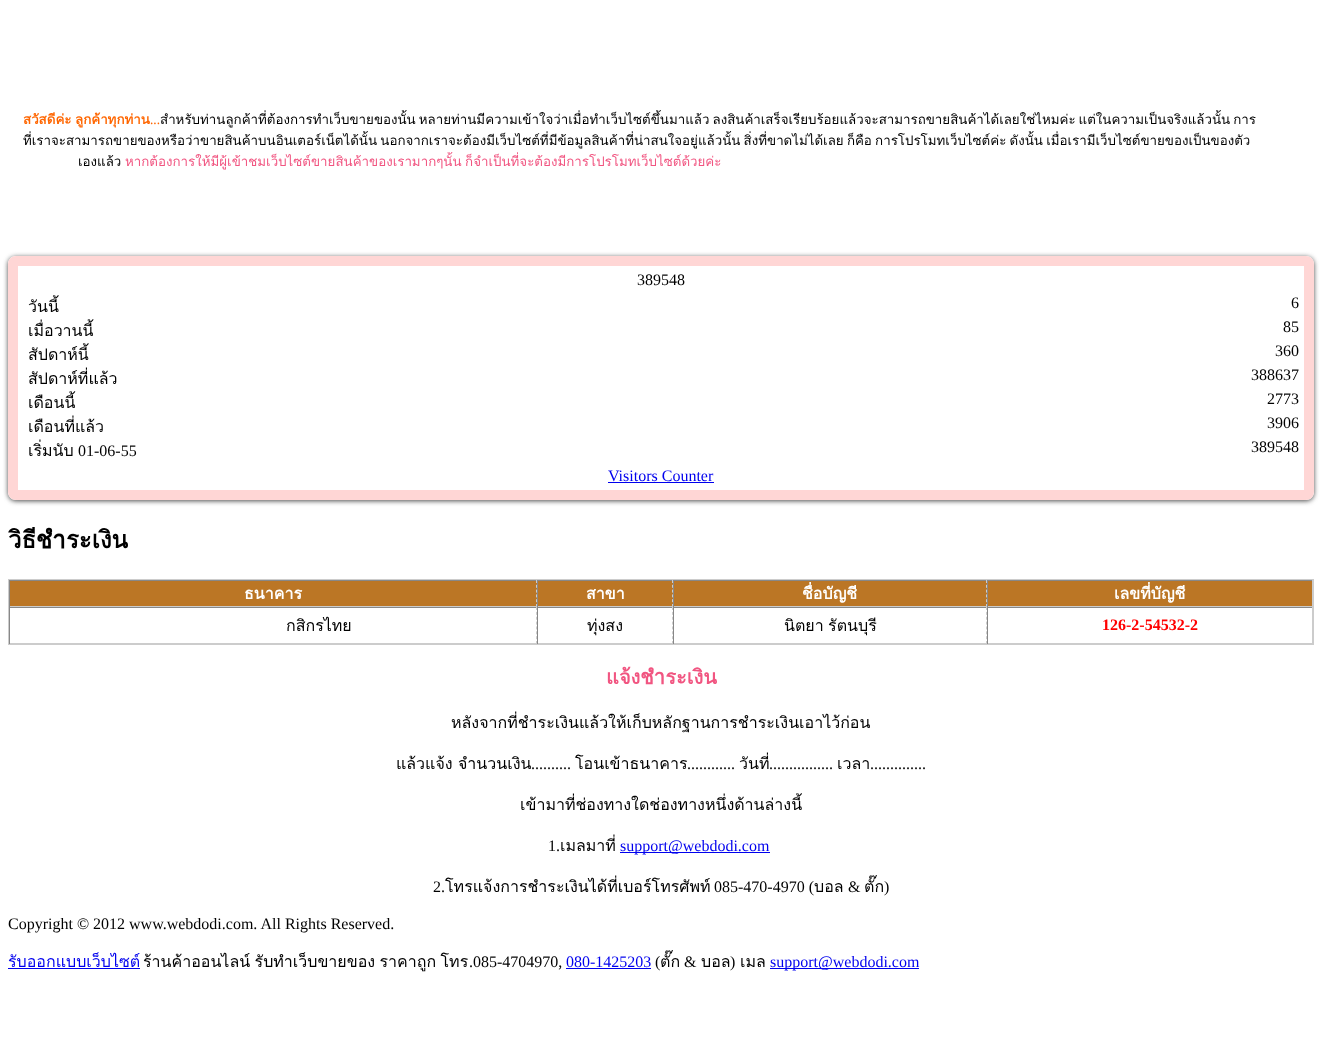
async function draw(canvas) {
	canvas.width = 1322;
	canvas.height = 1043;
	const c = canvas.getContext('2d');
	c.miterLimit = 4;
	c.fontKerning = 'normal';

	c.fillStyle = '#fff';
	c.fillRect(0, 0, 1322, 1043);
	c.wordSpacing = '-1px';
	c.font = 'bold 13.33px Loma';
	c.fillStyle = '#f60';
	c.fillText('สวัสดีค่ะ ลูกค้าทุกท่าน', 23, 124);
	c.wordSpacing = '0px';
	c.font = '13.33px Liberation Serif';
	c.fillText('...', 150, 124);
	c.wordSpacing = '-1.5px';
	c.font = '13.33px Loma';
	c.fillStyle = '#000';
	c.fillText('สำหรับท่านลูกค้าที่ต้องการทำเว็บขายของนั้น หลายท่านมีความเข้าใจว่าเมื่อทำเว็บไซต์ขึ้นมาแล้ว ลงสินค้าเสร็จเรียบร้อยแล้วจะสามารถขายสินค้าได้เลยใช่ไหมค่ะ แต่ในความเป็นจริงแล้วนั้น การ', 160, 124);
	c.wordSpacing = '-1.25px';
	c.fillText('ที่เราจะสามารถขายของหรือว่าขายสินค้าบนอินเตอร์เน็ตได้นั้น นอกจากเราจะต้องมีเว็บไซต์ที่มีข้อมูลสินค้าที่น่าสนใจอยู่แล้วนั้น สิ่งที่ขาดไม่ได้เลย ก็คือ การโปรโมทเว็บไซต์ค่ะ ดังนั้น เมื่อเรามีเว็บไซต์ขายของเป็นของตัว', 23, 145);
	c.wordSpacing = '0px';
	c.fillText('เองแล้ว', 78, 166);
	c.wordSpacing = '-1px';
	c.fillStyle = '#f15581';
	c.fillText('หากต้องการให้มีผู้เข้าชมเว็บไซต์ขายสินค้าของเรามากๆนั้น ก็จำเป็นที่จะต้องมีการโปรโมทเว็บไซต์ด้วยค่ะ', 125, 166);
	c.save();
	c.beginPath();
	c.moveTo(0, 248);
	c.lineTo(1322, 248);
	c.lineTo(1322, 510);
	c.lineTo(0, 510);
	c.closePath();
	c.moveTo(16, 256);
	c.lineTo(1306, 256);
	c.bezierCurveTo(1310.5, 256, 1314, 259.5, 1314, 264);
	c.lineTo(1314, 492);
	c.bezierCurveTo(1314, 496.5, 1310.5, 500, 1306, 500);
	c.lineTo(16, 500);
	c.bezierCurveTo(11.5, 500, 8, 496.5, 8, 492);
	c.lineTo(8, 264);
	c.bezierCurveTo(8, 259.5, 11.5, 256, 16, 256);
	c.closePath();
	c.clip('evenodd');
	c.fillStyle = '#4a4a4a';
	c.filter = 'blur(2.5px)';
	c.beginPath();
	c.roundRect(8, 257, 1306, 244, 8);
	c.fill();
	c.filter = 'none';
	c.restore();
	c.beginPath();
	c.roundRect(13, 261, 1296, 234, 3);
	c.strokeStyle = '#ffd6d5';
	c.lineWidth = 10;
	c.stroke();
	c.wordSpacing = '0px';
	c.font = '16px Liberation Serif';
	c.fillStyle = '#000';
	c.fillText('389548', 637, 285);
	c.font = '16px Loma';
	for (const [text, x, y] of [
		['วันนี้', 28, 312],
		['เมื่อวานนี้', 28, 336],
		['สัปดาห์นี้', 28, 360],
		['สัปดาห์ที่แล้ว', 28, 384],
		['เดือนนี้', 28, 408],
		['เดือนที่แล้ว', 28, 432],
		['เริ่มนับ', 28, 456],
	]) {
		c.fillText(text, x, y);
	}
	c.font = '16px Liberation Serif';
	for (const [text, x, y] of [
		['01-06-55', 78, 456],
		['6', 1291, 308],
		['85', 1283, 332],
		['360', 1275, 356],
		['388637', 1251, 380],
		['2773', 1267, 404],
		['3906', 1267, 428],
		['389548', 1251, 452],
	]) {
		c.fillText(text, x, y);
	}
	c.fillStyle = '#00e';
	c.fillText('Visitors Counter', 608, 481);
	c.fillRect(608, 482, 106, 1);
	c.font = 'bold 24px Loma';
	c.fillStyle = '#000';
	c.fillText('วิธีชำระเงิน', 8, 548);
	c.strokeStyle = '#ccc';
	c.lineWidth = 1;
	c.strokeRect(8.5, 579.5, 1305, 65);
	c.fillStyle = '#bb7625';
	c.fillRect(10, 581, 527, 25);
	c.fillStyle = '#888';
	c.fillRect(9, 580, 1304, 1);
	c.beginPath();
	c.moveTo(536.5, 580);
	c.lineTo(536.5, 607);
	c.setLineDash([3, 1.8]);
	c.stroke();
	c.fillStyle = '#ccc';
	c.fillRect(9, 606, 528, 1);
	c.fillStyle = '#888';
	c.fillRect(9, 580, 1, 27);
	c.font = 'bold 16px Loma';
	c.fillStyle = '#fff';
	c.fillText('ธนาคาร', 244, 599);
	c.fillStyle = '#bb7625';
	c.fillRect(538, 581, 135, 25);
	c.beginPath();
	c.moveTo(672.5, 580);
	c.lineTo(672.5, 607);
	c.stroke();
	c.fillStyle = '#ccc';
	c.fillRect(537, 606, 136, 1);
	c.fillStyle = '#888';
	c.fillRect(537, 580, 1, 27);
	c.fillStyle = '#fff';
	c.fillText('สาขา', 586, 599);
	c.fillStyle = '#bb7625';
	c.fillRect(674, 581, 313, 25);
	c.beginPath();
	c.moveTo(986.5, 580);
	c.lineTo(986.5, 607);
	c.stroke();
	c.fillStyle = '#ccc';
	c.fillRect(673, 606, 314, 1);
	c.fillStyle = '#888';
	c.fillRect(673, 580, 1, 27);
	c.fillStyle = '#fff';
	c.fillText('ชื่อบัญชี', 802, 599);
	for (const [x, y, w, h, color] of [
		[988, 581, 324, 25, '#bb7625'],
		[1312, 580, 1, 27, '#ccc'],
		[987, 606, 326, 1, '#ccc'],
		[987, 580, 1, 27, '#888'],
	]) {
		c.fillStyle = color;
		c.fillRect(x, y, w, h);
	}
	c.fillStyle = '#fff';
	c.fillText('เลขที่บัญชี', 1114, 599);
	c.fillStyle = '#888';
	c.fillRect(9, 607, 1304, 1);
	c.beginPath();
	c.moveTo(536.5, 607);
	c.lineTo(536.5, 644);
	c.setLineDash([3, 1.86]);
	c.stroke();
	c.fillStyle = '#ccc';
	c.fillRect(9, 643, 528, 1);
	c.fillStyle = '#888';
	c.fillRect(9, 607, 1, 37);
	c.font = '16px Loma';
	c.fillStyle = '#000';
	c.fillText('กสิกรไทย', 286, 631);
	c.beginPath();
	c.moveTo(672.5, 607);
	c.lineTo(672.5, 644);
	c.stroke();
	c.fillStyle = '#ccc';
	c.fillRect(537, 643, 136, 1);
	c.fillStyle = '#888';
	c.fillRect(537, 607, 1, 37);
	c.fillStyle = '#000';
	c.fillText('ทุ่งสง', 587, 631);
	c.beginPath();
	c.moveTo(986.5, 607);
	c.lineTo(986.5, 644);
	c.stroke();
	c.fillStyle = '#ccc';
	c.fillRect(673, 643, 314, 1);
	c.fillStyle = '#888';
	c.fillRect(673, 607, 1, 37);
	c.wordSpacing = '-1px';
	c.fillStyle = '#000';
	c.fillText('นิตยา รัตนบุรี', 784, 631);
	for (const [x, y, w, h, color] of [
		[1312, 607, 1, 37, '#ccc'],
		[987, 643, 326, 1, '#ccc'],
		[987, 607, 1, 37, '#888'],
	]) {
		c.fillStyle = color;
		c.fillRect(x, y, w, h);
	}
	c.wordSpacing = '0px';
	c.font = 'bold 16px Liberation Serif';
	c.fillStyle = '#f00';
	c.fillText('126-2-54532-2', 1102, 630);
	c.font = 'bold 20px Loma';
	c.fillStyle = '#f15581';
	c.fillText('แจ้งชำระเงิน', 606, 684);
	c.font = '16px Loma';
	c.fillStyle = '#000';
	c.fillText('หลังจากที่ชำระเงินแล้วให้เก็บหลักฐานการชำระเงินเอาไว้ก่อน', 451, 728);
	c.fillText('แล้วแจ้ง จำนวนเงิน', 396, 769);
	c.font = '16px Liberation Serif';
	c.fillText('..........', 531, 769);
	c.font = '16px Loma';
	c.fillText('โอนเข้าธนาคาร', 575, 769);
	c.font = '16px Liberation Serif';
	c.fillText('............', 687, 769);
	c.font = '16px Loma';
	c.fillText('วันที่', 739, 769);
	c.font = '16px Liberation Serif';
	c.fillText('................', 769, 769);
	c.font = '16px Loma';
	c.fillText('เวลา', 837, 769);
	c.font = '16px Liberation Serif';
	c.fillText('..............', 870, 769);
	c.font = '16px Loma';
	c.fillText('เข้ามาที่ช่องทางใดช่องทางหนึ่งด้านล่างนี้', 520, 810);
	c.font = '16px Liberation Serif';
	c.fillText('1.', 548, 851);
	c.font = '16px Loma';
	c.fillText('เมลมาที่', 560, 851);
	c.fillStyle = '#00e';
	c.fillRect(620, 852, 150, 1);
	c.font = '16px Liberation Serif';
	c.fillText('support@webdodi.com', 620, 851);
	c.fillStyle = '#000';
	c.fillText('2.', 433, 892);
	c.font = '16px Loma';
	c.fillText('โทรแจ้งการชำระเงินได้ที่เบอร์โทรศัพท์', 445, 892);
	c.font = '16px Liberation Serif';
	c.fillText('085-470-4970 (', 714, 892);
	c.font = '16px Loma';
	c.fillText('บอล', 814, 892);
	c.font = '16px Liberation Serif';
	c.fillText('&', 848, 892);
	c.font = '16px Loma';
	c.fillText('ตั๊ก', 864, 892);
	c.font = '16px Liberation Serif';
	c.fillText(')', 884, 892);
	c.fillText('Copyright © 2012 www.webdodi.com. All Rights Reserved.', 8, 929);
	c.font = '16px Loma';
	c.fillStyle = '#00e';
	c.fillText('รับออกแบบเว็บไซต์', 8, 967);
	c.fillRect(8, 968, 132, 1);
	c.wordSpacing = '-1px';
	c.fillStyle = '#000';
	c.fillText('ร้านค้าออนไลน์ รับทำเว็บขายของ ราคาถูก โทร', 143, 967);
	c.wordSpacing = '0px';
	c.font = '16px Liberation Serif';
	c.fillText('(', 655, 967);
	c.font = '16px Loma';
	c.fillText('ตั๊ก', 660, 967);
	c.font = '16px Liberation Serif';
	c.fillText('.085-4704970,', 469, 967);
	c.fillStyle = '#00e';
	c.fillText('080-1425203', 566, 967);
	c.fillRect(566, 968, 85, 1);
	c.fillStyle = '#000';
	c.fillText('&', 684, 967);
	c.font = '16px Loma';
	c.fillText('บอล', 701, 967);
	c.font = '16px Liberation Serif';
	c.fillText(')', 730, 967);
	c.font = '16px Loma';
	c.fillText('เมล', 740, 967);
	c.fillStyle = '#00e';
	c.fillRect(770, 968, 149, 1);
	c.font = '16px Liberation Serif';
	c.fillText('support@webdodi.com', 770, 967);
}

draw(document.querySelector('canvas'));
